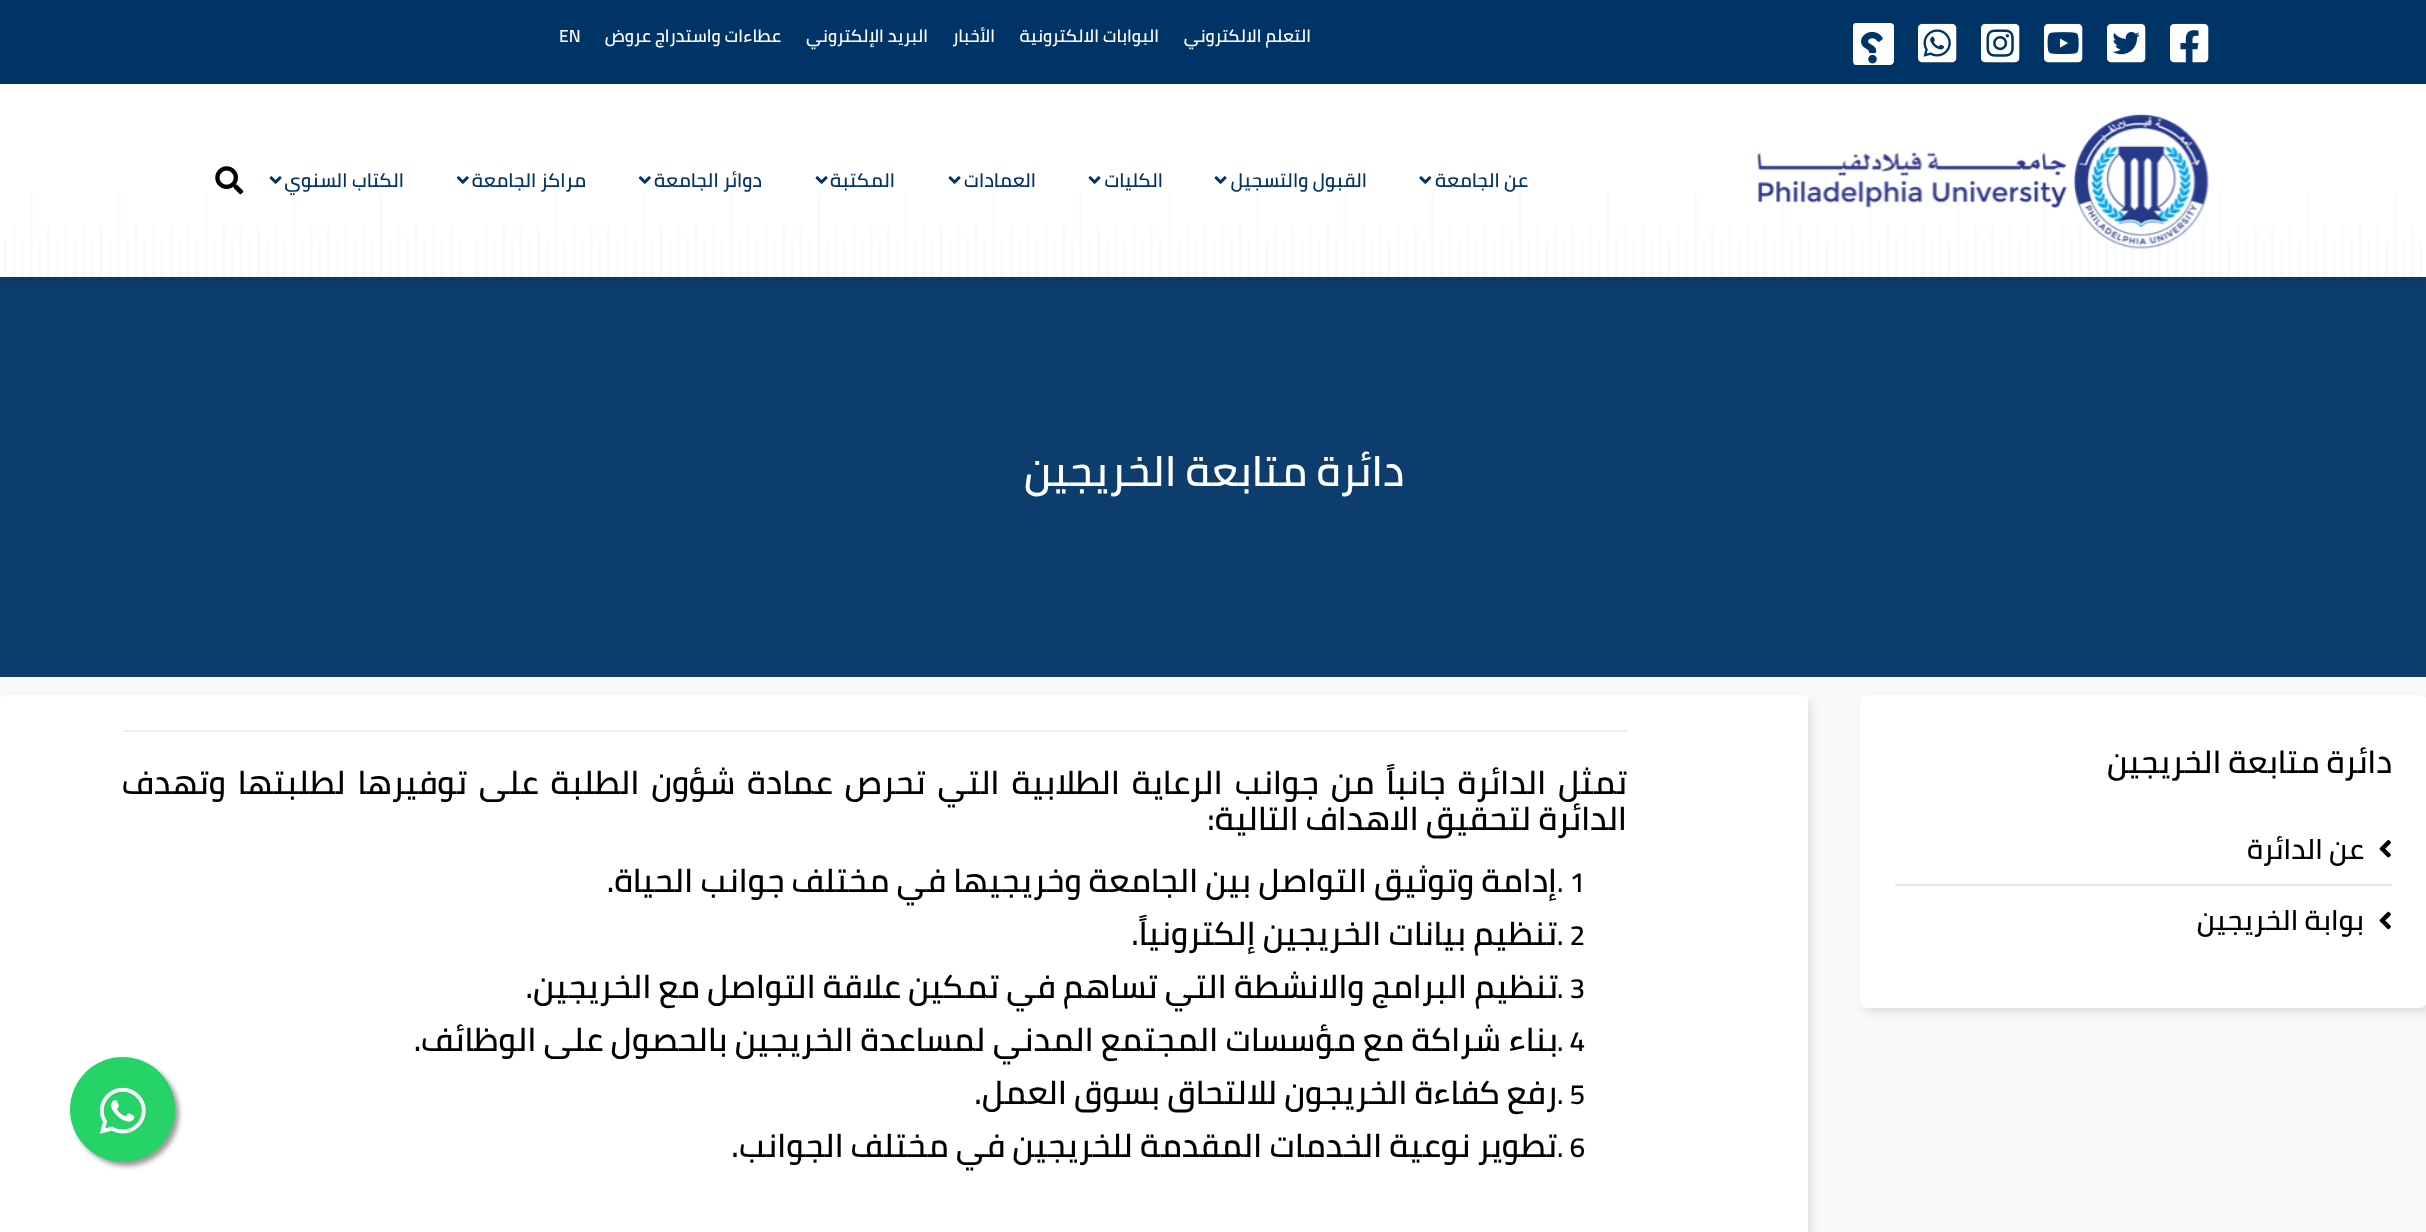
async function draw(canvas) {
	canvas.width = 2426;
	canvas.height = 1232;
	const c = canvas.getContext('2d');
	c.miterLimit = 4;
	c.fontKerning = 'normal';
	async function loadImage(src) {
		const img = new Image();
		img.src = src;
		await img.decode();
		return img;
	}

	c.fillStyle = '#f9f9f9';
	c.fillRect(0, 0, 2426, 1232);
	c.fillStyle = '#036';
	c.fillRect(0, 0, 2426, 84);
	c.drawImage(await loadImage('img1.png'), 2170, 23, 39, 40);
	c.drawImage(await loadImage('img2.png'), 2107, 23, 39, 40);
	c.drawImage(await loadImage('img3.png'), 2044, 23, 39, 40);
	c.drawImage(await loadImage('img4.png'), 1981, 23, 39, 40);
	c.drawImage(await loadImage('img5.png'), 1918, 23, 39, 40);
	c.fillStyle = '#fff';
	c.beginPath();
	c.moveTo(1890, 23);
	c.lineTo(1856, 23);
	c.bezierCurveTo(1854, 23, 1853, 24, 1853, 26);
	c.lineTo(1853, 61);
	c.bezierCurveTo(1853, 63, 1854, 65, 1856, 65);
	c.lineTo(1890, 65);
	c.bezierCurveTo(1892, 65, 1894, 63, 1894, 61);
	c.lineTo(1894, 26);
	c.bezierCurveTo(1894, 24, 1892, 23, 1890, 23);
	c.closePath();
	c.fill();
	c.drawImage(await loadImage('img6.png'), 1861, 31, 22, 33);
	c.direction = 'rtl';
	c.font = '600 17.5px Cairo';
	for (const [text, x, y] of [
		['التعلم الالكتروني', 1311, 42],
		['البوابات الالكترونية', 1159, 42],
		['الأخبار', 995, 42],
		['البريد الإلكتروني', 928, 42],
		['عطاءات واستدراج عروض', 781, 42],
	]) {
		c.fillText(text, x, y);
	}
	c.direction = 'ltr';
	c.fillText('EN', 559, 42);
	c.fillStyle = '#0d3d6d';
	c.fillRect(0, 277, 2426, 400);
	c.fillStyle = '#0000000d';
	c.filter = 'blur(2.5px)';
	c.beginPath();
	c.rect(0, 89, 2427, 193);
	c.fill();
	c.filter = 'none';
	c.fillStyle = '#fff';
	c.fillRect(0, 84, 2426, 193);
	c.drawImage(await loadImage('img7.png'), 4, 193, 2418, 84);
	c.drawImage(await loadImage('img8.png'), 1757, 113, 452, 136);
	c.direction = 'rtl';
	c.font = '600 19.25px Cairo';
	c.fillStyle = '#036';
	c.fillText('عن الجامعة', 1528, 187);
	c.drawImage(await loadImage('img9.png'), 1419, 176, 13, 8);
	c.fillText('القبول والتسجيل', 1367, 187);
	c.drawImage(await loadImage('img10.png'), 1214, 176, 13, 8);
	c.fillText('الكليات', 1163, 187);
	c.drawImage(await loadImage('img10.png'), 1088, 176, 13, 8);
	c.fillText('العمادات', 1036, 187);
	c.drawImage(await loadImage('img10.png'), 948, 176, 13, 8);
	c.fillText('المكتبة', 895, 187);
	c.drawImage(await loadImage('img10.png'), 815, 176, 13, 8);
	c.fillText('دوائر الجامعة', 762, 187);
	c.drawImage(await loadImage('img11.png'), 638, 176, 13, 8);
	c.fillText('مراكز الجامعة', 586, 187);
	c.drawImage(await loadImage('img11.png'), 456, 176, 13, 8);
	c.fillText('الكتاب السنوي', 404, 187);
	c.drawImage(await loadImage('img10.png'), 269, 176, 13, 8);
	c.drawImage(await loadImage('img12.png'), 215, 166, 29, 29);
	c.font = '600 42px Cairo';
	c.fillStyle = '#fff';
	c.fillText('دائرة متابعة الخريجين', 1404, 486);
	c.fillStyle = '#0000001a';
	c.filter = 'blur(4.5px)';
	c.beginPath();
	c.roundRect(1864, 700, 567, 313, 7);
	c.fill();
	c.filter = 'none';
	c.fillStyle = '#fff';
	c.beginPath();
	c.roundRect(1860, 695, 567, 313, 7);
	c.fill();
	c.font = '600 31.5px Cairo';
	c.fillStyle = '#000';
	c.fillText('دائرة متابعة الخريجين', 2392, 773);
	c.fillStyle = '#e8e8e8';
	c.fillRect(1895, 884, 497, 2);
	c.drawImage(await loadImage('img13.png'), 2379, 840, 12, 18);
	c.font = '600 28px Cairo';
	c.fillStyle = '#000';
	c.fillText('عن الدائرة', 2364, 859);
	c.drawImage(await loadImage('img14.png'), 2379, 911, 12, 19);
	c.fillText('بوابة الخريجين', 2364, 930);
	c.fillStyle = '#0000001a';
	c.filter = 'blur(4.5px)';
	c.beginPath();
	c.roundRect(4, 700, 1807, 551, 5);
	c.fill();
	c.filter = 'none';
	c.fillStyle = '#fff';
	c.beginPath();
	c.roundRect(0, 695, 1808, 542, 5);
	c.fill();
	c.fillStyle = '#eee';
	c.fillRect(123, 730, 1505, 2);
	c.wordSpacing = '4.75px';
	c.font = '600 32.65px Cairo';
	c.fillStyle = '#000';
	c.fillText('تمثل الدائرة جانباً من جوانب الرعاية الطلابية التي تحرص عمادة شؤون الطلبة على توفيرها لطلبتها وتهدف', 1627, 794);
	c.wordSpacing = '0px';
	c.fillText('الدائرة لتحقيق الاهداف التالية:', 1627, 830);
	c.direction = 'ltr';
	c.font = '600 28px Cairo';
	c.fillText('. 1', 1557, 892);
	c.direction = 'rtl';
	c.font = '600 32.65px Cairo';
	c.fillText('إدامة وتوثيق التواصل بين الجامعة وخريجيها في مختلف جوانب الحياة.', 1557, 892);
	c.direction = 'ltr';
	c.font = '600 28px Cairo';
	c.fillText('. 2', 1557, 945);
	c.direction = 'rtl';
	c.font = '600 32.65px Cairo';
	c.fillText('تنظيم بيانات الخريجين إلكترونياً.', 1557, 945);
	c.direction = 'ltr';
	c.font = '600 28px Cairo';
	c.fillText('. 3', 1557, 998);
	c.direction = 'rtl';
	c.font = '600 32.65px Cairo';
	c.fillText('تنظيم البرامج والانشطة التي تساهم في تمكين علاقة التواصل مع الخريجين.', 1558, 998);
	c.direction = 'ltr';
	c.font = '600 28px Cairo';
	c.fillText('. 4', 1557, 1051);
	c.direction = 'rtl';
	c.font = '600 32.65px Cairo';
	c.fillText('بناء شراكة مع مؤسسات المجتمع المدني لمساعدة الخريجين بالحصول على الوظائف.', 1558, 1051);
	c.direction = 'ltr';
	c.font = '600 28px Cairo';
	c.fillText('. 5', 1557, 1104);
	c.direction = 'rtl';
	c.font = '600 32.65px Cairo';
	c.fillText('رفع كفاءة الخريجون للالتحاق بسوق العمل.', 1557, 1104);
	c.direction = 'ltr';
	c.font = '600 28px Cairo';
	c.fillText('. 6', 1557, 1157);
	c.direction = 'rtl';
	c.font = '600 32.65px Cairo';
	c.fillText('تطوير نوعية الخدمات المقدمة للخريجين في مختلف الجوانب.', 1557, 1157);
	c.fillStyle = '#999';
	c.filter = 'blur(2.5px)';
	c.beginPath();
	c.roundRect(74, 1061, 105, 105, 52.5);
	c.fill();
	c.filter = 'none';
	c.fillStyle = '#25d366';
	c.beginPath();
	c.arc(122.5, 1109.5, 52.5, 0, 2 * Math.PI);
	c.fill();
	c.drawImage(await loadImage('img15.png'), 99, 1087, 47, 47);
}

draw(document.querySelector('canvas'));
